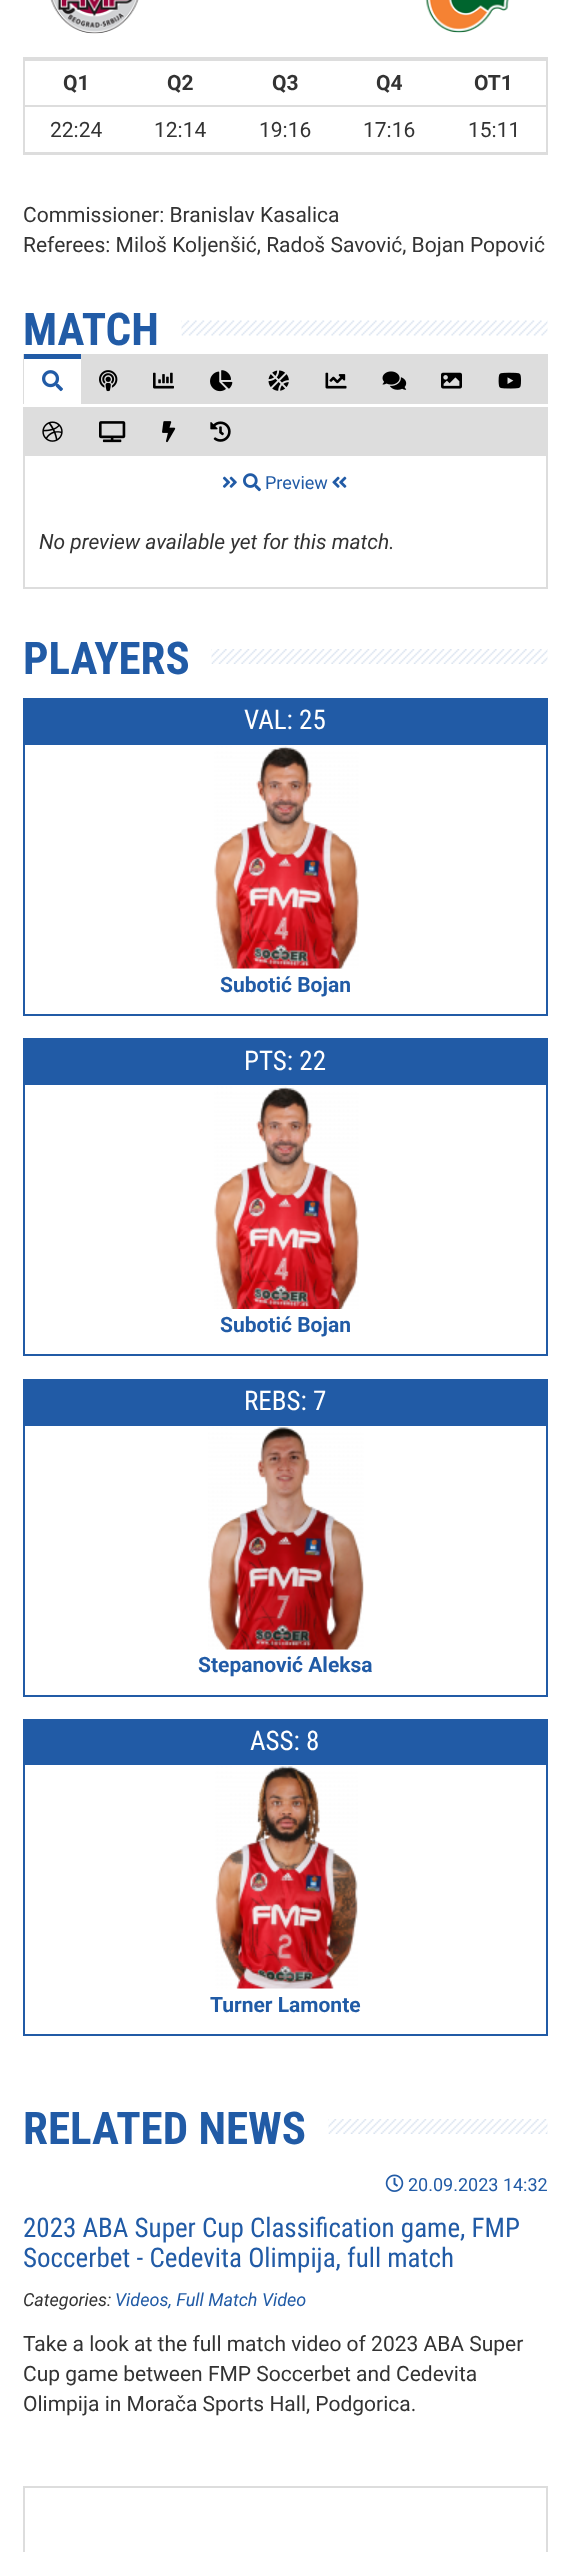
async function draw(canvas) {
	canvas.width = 569;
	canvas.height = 2552;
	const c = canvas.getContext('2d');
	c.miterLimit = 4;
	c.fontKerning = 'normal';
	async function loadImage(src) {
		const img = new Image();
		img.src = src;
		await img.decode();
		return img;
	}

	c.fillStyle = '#fff';
	c.fillRect(0, 0, 569, 2552);
	c.drawImage(await loadImage('img1.png'), 50, 0, 89, 34);
	c.drawImage(await loadImage('img2.png'), 425, 0, 84, 33);
	c.strokeStyle = '#ddd';
	c.lineWidth = 2;
	c.strokeRect(24, 58, 523, 96);
	c.fillStyle = '#ddd';
	c.fillRect(24, 152, 522, 1);
	c.font = 'bold 21px Roboto';
	c.fillStyle = '#333';
	for (const [text, x, y] of [
		['Q1', 63, 90],
		['Q2', 167, 90],
		['Q3', 272, 90],
		['Q4', 376, 90],
	]) {
		c.fillText(text, x, y);
	}
	c.fillStyle = '#ddd';
	c.fillRect(24, 59, 522, 2);
	c.fillStyle = '#333';
	c.fillText('OT1', 474, 90);
	c.font = '21px Roboto';
	for (const [text, x, y] of [
		['22:24', 50, 137],
		['12:14', 154, 137],
		['19:16', 259, 137],
		['17:16', 363, 137],
	]) {
		c.fillText(text, x, y);
	}
	c.fillStyle = '#ddd';
	c.fillRect(24, 105, 522, 2);
	c.fillStyle = '#333';
	for (const [text, x, y] of [
		['15:11', 468, 137],
		['Commissioner: Branislav Kasalica', 23, 222],
		['Referees: Miloš Koljenšić, Radoš Savović, Bojan Popović', 23, 252],
	]) {
		c.fillText(text, x, y);
	}
	c.font = 'bold 45px Roboto Condensed';
	c.fillStyle = '#215ba6';
	c.fillText('MATCH', 23, 345);
	c.drawImage(await loadImage('img3.png'), 181, 320, 367, 16);
	for (const [x, y, w, h, color] of [
		[23, 354, 525, 102, '#ddd'],
		[24, 359, 57, 45, '#fff'],
		[24, 354, 57, 5, '#215ba6'],
	]) {
		c.fillStyle = color;
		c.fillRect(x, y, w, h);
	}
	c.drawImage(await loadImage('img4.png'), 42, 370, 21, 22);
	c.drawImage(await loadImage('img5.png'), 99, 370, 19, 22);
	c.drawImage(await loadImage('img6.png'), 153, 372, 21, 17);
	c.drawImage(await loadImage('img7.png'), 210, 370, 23, 22);
	c.drawImage(await loadImage('img8.png'), 268, 370, 21, 21);
	c.drawImage(await loadImage('img9.png'), 325, 372, 22, 17);
	c.drawImage(await loadImage('img10.png'), 382, 371, 25, 19);
	c.drawImage(await loadImage('img11.png'), 441, 372, 21, 17);
	c.drawImage(await loadImage('img12.png'), 498, 372, 23, 17);
	c.drawImage(await loadImage('img13.png'), 42, 421, 21, 21);
	c.drawImage(await loadImage('img14.png'), 99, 421, 27, 22);
	c.drawImage(await loadImage('img15.png'), 162, 421, 14, 22);
	c.drawImage(await loadImage('img16.png'), 210, 421, 21, 21);
	for (const [x, y, w, h, color] of [
		[23, 404, 525, 3, '#fff'],
		[546, 456, 2, 132, '#ddd'],
		[23, 587, 525, 2, '#ddd'],
		[23, 456, 2, 132, '#ddd'],
	]) {
		c.fillStyle = color;
		c.fillRect(x, y, w, h);
	}
	c.drawImage(await loadImage('img17.png'), 222, 476, 15, 12);
	c.drawImage(await loadImage('img18.png'), 243, 473, 18, 19);
	c.font = '18px Roboto';
	c.fillStyle = '#215ba6';
	c.fillText('Preview', 265, 489);
	c.drawImage(await loadImage('img19.png'), 332, 476, 15, 12);
	c.font = 'italic 21px Roboto';
	c.fillStyle = '#333';
	c.fillText('No preview available yet for this match.', 39, 549);
	c.font = 'bold 45px Roboto Condensed';
	c.fillStyle = '#215ba6';
	c.fillText('PLAYERS', 23, 674);
	c.drawImage(await loadImage('img20.png'), 211, 649, 337, 15);
	c.fillRect(23, 698, 525, 45);
	c.font = '27px Roboto Condensed';
	c.fillStyle = '#fff';
	c.fillText('VAL: 25', 244, 729);
	c.strokeStyle = '#215ba6';
	c.strokeRect(24, 744, 523, 271);
	c.drawImage(await loadImage('img21.png'), 214, 746, 145, 223);
	c.font = 'bold 21px Roboto';
	c.fillStyle = '#215ba6';
	c.fillText('Subotić Bojan', 220, 992);
	c.fillRect(23, 1038, 525, 45);
	c.font = '27px Roboto Condensed';
	c.fillStyle = '#fff';
	c.fillText('PTS: 22', 244, 1070);
	c.strokeRect(24, 1084, 523, 271);
	c.drawImage(await loadImage('img22.png'), 214, 1086, 145, 223);
	c.font = 'bold 21px Roboto';
	c.fillStyle = '#215ba6';
	c.fillText('Subotić Bojan', 220, 1332);
	c.fillRect(23, 1379, 525, 45);
	c.font = '27px Roboto Condensed';
	c.fillStyle = '#fff';
	c.fillText('REBS: 7', 244, 1410);
	c.strokeRect(24, 1425, 523, 271);
	c.drawImage(await loadImage('img23.png'), 208, 1427, 156, 223);
	c.font = 'bold 21px Roboto';
	c.fillStyle = '#215ba6';
	c.fillText('Stepanović Aleksa', 198, 1672);
	c.fillRect(23, 1719, 525, 44);
	c.font = '27px Roboto Condensed';
	c.fillStyle = '#fff';
	c.fillText('ASS: 8', 250, 1750);
	c.strokeRect(24, 1764, 523, 271);
	c.drawImage(await loadImage('img24.png'), 215, 1766, 143, 223);
	c.font = 'bold 21px Roboto';
	c.fillStyle = '#215ba6';
	c.fillText('Turner Lamonte', 210, 2012);
	c.font = 'bold 45px Roboto Condensed';
	c.fillText('RELATED NEWS', 23, 2144);
	c.drawImage(await loadImage('img25.png'), 328, 2119, 220, 15);
	c.drawImage(await loadImage('img26.png'), 385, 2174, 19, 18);
	c.font = '18px Roboto';
	c.fillText('20.09.2023 14:32', 408, 2191);
	c.font = '27px Roboto Condensed';
	c.fillText('2023 ABA Super Cup Classification game, FMP', 23, 2237);
	c.fillText('Soccerbet - Cedevita Olimpija, full match', 23, 2267);
	c.font = 'italic 18px Roboto';
	c.fillStyle = '#333';
	c.fillText('Categories:', 23, 2306);
	c.fillStyle = '#215ba6';
	c.fillText('Videos, Full Match Video', 115, 2306);
	c.font = '21px Roboto';
	c.fillStyle = '#333';
	for (const [text, x, y] of [
		['Take a look at the full match video of 2023 ABA Super', 23, 2351],
		['Cup game between FMP Soccerbet and Cedevita', 23, 2381],
		['Olimpija in Morača Sports Hall, Podgorica.', 23, 2411],
	]) {
		c.fillText(text, x, y);
	}
	c.strokeStyle = '#ddd';
	c.strokeRect(24, 2487, 523, 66);
}

draw(document.querySelector('canvas'));
